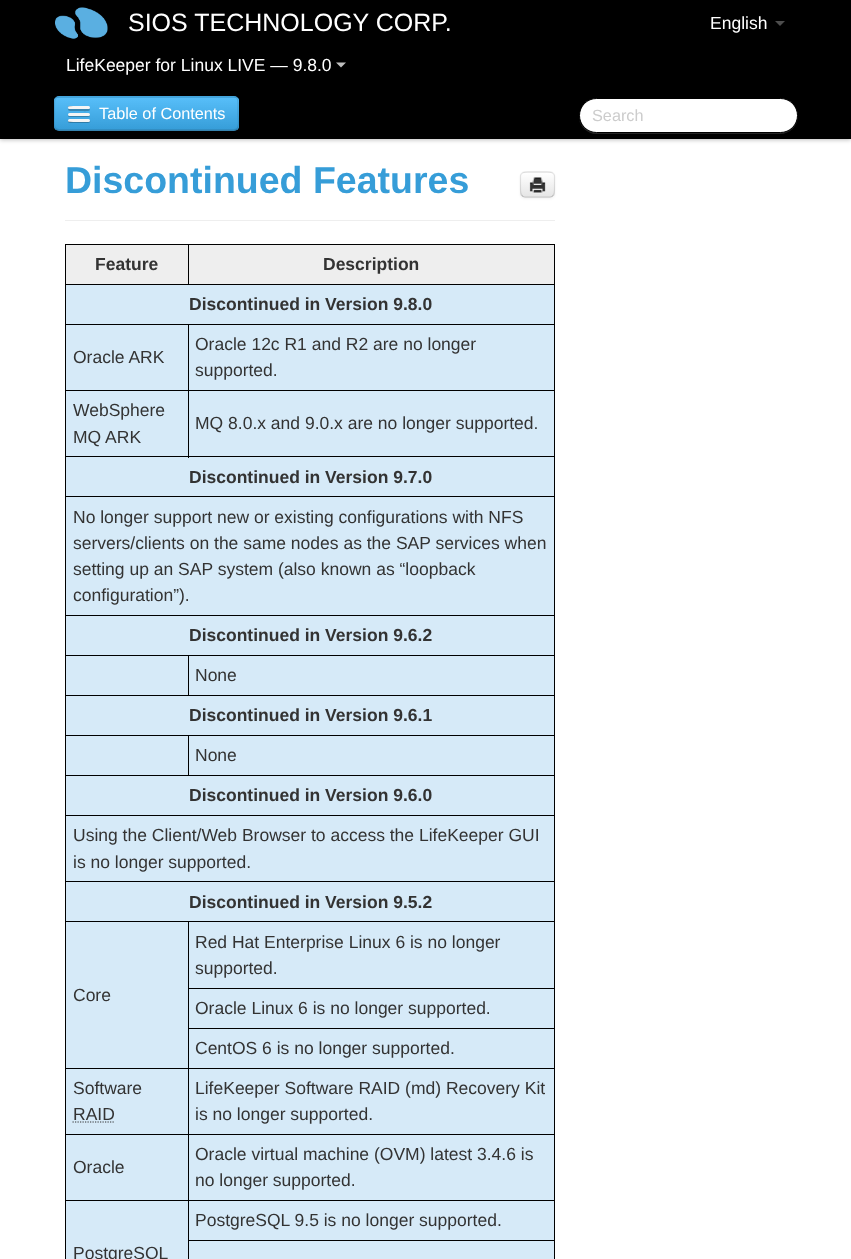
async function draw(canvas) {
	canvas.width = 851;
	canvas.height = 1259;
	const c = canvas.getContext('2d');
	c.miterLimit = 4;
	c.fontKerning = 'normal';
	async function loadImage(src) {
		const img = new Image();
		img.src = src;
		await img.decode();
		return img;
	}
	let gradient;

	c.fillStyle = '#fff';
	c.fillRect(0, 0, 851, 1259);
	c.fillStyle = '#00000040';
	c.filter = 'blur(2px)';
	c.beginPath();
	c.rect(0, 1, 851, 139);
	c.fill();
	c.filter = 'none';
	c.fillStyle = '#000';
	c.fillRect(0, 0, 851, 139);
	c.drawImage(await loadImage('img1.png'), 55, 7, 53, 32);
	c.font = '25px Liberation Sans';
	c.fillStyle = '#fff';
	c.fillText('SIOS TECHNOLOGY CORP.', 128, 31);
	c.font = '17.5px Liberation Sans';
	c.fillText('LifeKeeper for Linux LIVE — 9.8.0', 66, 71);
	c.fillStyle = '#bfbfbf';
	c.beginPath();
	c.moveTo(336, 62.5);
	c.lineTo(346, 62.5);
	c.lineTo(341, 67.5);
	c.closePath();
	c.fill();
	c.fillStyle = '#47aee9';
	c.beginPath();
	c.roundRect(54, 96, 185, 35, 5);
	c.fill();
	c.save();
	c.beginPath();
	c.roundRect(54, 96, 185, 35, 5);
	c.clip();
	gradient = c.createLinearGradient(146, 97, 146, 130);
	gradient.addColorStop(0, '#58bffa');
	gradient.addColorStop(1, '#369dd8');
	c.fillStyle = gradient;
	c.fillRect(54, 98, 185, 32);
	c.restore();
	c.fillStyle = '#328ec3';
	c.beginPath();
	c.moveTo(55, 125);
	c.lineTo(55, 126);
	c.bezierCurveTo(55, 128, 57, 130, 59, 130);
	c.lineTo(234, 130);
	c.bezierCurveTo(236, 130, 238, 128, 238, 126);
	c.lineTo(238, 125);
	c.bezierCurveTo(238, 127, 236, 129, 234, 129);
	c.lineTo(59, 129);
	c.bezierCurveTo(57, 129, 55, 127, 55, 125);
	c.closePath();
	c.fill();
	c.beginPath();
	c.moveTo(237, 129.5);
	c.bezierCurveTo(236, 130, 235, 130.5, 234, 130.5);
	c.lineTo(59, 130.5);
	c.bezierCurveTo(57.5, 130.5, 56.5, 130, 55.5, 129.5);
	c.strokeStyle = '#00000040';
	c.lineWidth = 1.2;
	c.stroke();
	c.beginPath();
	c.moveTo(55.5, 129.5);
	c.bezierCurveTo(53, 127, 54.5, 117, 54.5, 114);
	c.lineTo(54.5, 105.5);
	c.bezierCurveTo(54.5, 102, 54, 97, 59, 97);
	c.lineTo(234, 97);
	c.bezierCurveTo(238.5, 97, 238, 102, 238, 105.5);
	c.lineTo(238, 114);
	c.bezierCurveTo(238, 117, 239.5, 127, 237, 129.5);
	c.strokeStyle = '#0000001a';
	c.stroke();
	c.fillStyle = '#3885b1';
	c.beginPath();
	c.moveTo(68.5, 108.5);
	c.bezierCurveTo(66.5, 111.5, 72, 111, 72.5, 111);
	c.lineTo(79, 111);
	c.bezierCurveTo(81, 111, 89, 111.5, 89.5, 110.5);
	c.bezierCurveTo(90, 109.5, 90, 109, 89.5, 108.5);
	c.bezierCurveTo(89, 109, 69.5, 109, 68.5, 108.5);
	c.closePath();
	c.fill();
	c.fillStyle = '#f5f5f5';
	c.beginPath();
	c.roundRect(68, 106, 22, 3, 1.5);
	c.fill();
	c.drawImage(await loadImage('img2.png'), 67, 106, 6, 2);
	c.font = '16.25px Liberation Sans';
	c.fillStyle = '#fff';
	c.fillText('Table of Contents', 99, 119);
	c.fillStyle = '#3381ad';
	c.beginPath();
	c.moveTo(68, 115);
	c.bezierCurveTo(67, 117.5, 72, 117, 72.5, 117);
	c.lineTo(85.5, 117);
	c.bezierCurveTo(85.5, 117, 92, 117.5, 89.5, 114.5);
	c.lineTo(89, 115);
	c.closePath();
	c.fill();
	c.fillStyle = '#f5f5f5';
	c.beginPath();
	c.roundRect(68, 113, 22, 3, 1.5);
	c.fill();
	c.fillStyle = '#2f7ca8';
	c.beginPath();
	c.moveTo(68, 121);
	c.bezierCurveTo(67.5, 123.5, 72, 123, 72.5, 123);
	c.lineTo(85.5, 123);
	c.bezierCurveTo(86, 123, 91.5, 123.5, 90, 120.5);
	c.lineTo(89, 121);
	c.closePath();
	c.fill();
	c.fillStyle = '#f5f5f5';
	c.beginPath();
	c.roundRect(68, 119, 22, 3, 1.5);
	c.fill();
	c.drawImage(await loadImage('img3.png'), 68, 121, 5, 1);
	c.fillStyle = '#262626';
	c.beginPath();
	c.moveTo(579, 119);
	c.bezierCurveTo(580, 127, 588, 134, 596, 134);
	c.lineTo(780, 134);
	c.bezierCurveTo(790, 134, 798, 126, 798, 116);
	c.bezierCurveTo(798, 114, 798, 112, 797, 110);
	c.lineTo(798, 115);
	c.bezierCurveTo(798, 125, 790, 132, 780, 132);
	c.lineTo(596, 132);
	c.bezierCurveTo(588, 132, 581, 127, 579, 119);
	c.closePath();
	c.fill();
	c.fillStyle = '#fff';
	c.beginPath();
	c.roundRect(579.5, 98.5, 218, 34, 17);
	c.fill();
	c.strokeStyle = '#000';
	c.lineWidth = 1;
	c.stroke();
	c.fillStyle = '#ccc';
	c.fillText('Search', 592, 121);
	c.font = '17.5px Liberation Sans';
	c.fillStyle = '#fff';
	c.fillText('English', 710, 29);
	c.fillStyle = '#4d4d4d';
	c.beginPath();
	c.moveTo(775, 21);
	c.lineTo(785, 21);
	c.lineTo(780, 26);
	c.closePath();
	c.fill();
	c.fillStyle = '#eee';
	c.fillRect(65, 220, 490, 1);
	c.font = 'bold 37.5px Liberation Sans';
	c.fillStyle = '#369dd8';
	c.fillText('Discontinued Features', 65, 193);
	c.fillStyle = '#0000000d';
	c.filter = 'blur(1px)';
	c.beginPath();
	c.roundRect(520, 173, 35, 26, 5);
	c.fill();
	c.filter = 'none';
	c.fillStyle = '#f5f5f5';
	c.beginPath();
	c.roundRect(520, 171, 35, 27, 5);
	c.fill();
	c.save();
	c.beginPath();
	c.roundRect(520, 171, 35, 27, 5);
	c.clip();
	gradient = c.createLinearGradient(538, 173, 538, 196);
	gradient.addColorStop(0, '#fff');
	gradient.addColorStop(1, '#e6e6e6');
	c.fillStyle = gradient;
	c.fillRect(520, 173, 35, 23);
	c.restore();
	c.beginPath();
	c.moveTo(553, 195.5);
	c.bezierCurveTo(552.5, 196.5, 551, 197, 550, 197);
	c.lineTo(525, 197);
	c.bezierCurveTo(524, 197, 522.5, 196.5, 522, 195.5);
	c.strokeStyle = '#00000040';
	c.lineWidth = 1.2;
	c.stroke();
	c.beginPath();
	c.moveTo(522, 195.5);
	c.bezierCurveTo(520.5, 194, 520.5, 192, 520.5, 190);
	c.lineTo(520.5, 175.5);
	c.bezierCurveTo(521.5, 171.5, 526, 172, 529, 172);
	c.lineTo(546, 172);
	c.bezierCurveTo(549, 172, 553.5, 171.5, 554.5, 175.5);
	c.lineTo(554.5, 190);
	c.bezierCurveTo(554.5, 192, 554.5, 194, 553, 195.5);
	c.strokeStyle = '#0000001a';
	c.stroke();
	c.drawImage(await loadImage('img4.png'), 529, 177, 17, 17);
	for (const [x, y, w, h, color] of [
		[65, 244, 490, 1, '#000'],
		[554, 244, 1, 1015, '#000'],
		[65, 244, 1, 1015, '#000'],
		[66, 285, 488, 974, '#d6eaf8'],
		[66, 245, 122, 39, '#eee'],
	]) {
		c.fillStyle = color;
		c.fillRect(x, y, w, h);
	}
	c.font = 'bold 17.5px Liberation Sans';
	c.fillStyle = '#333';
	c.fillText('Feature', 95, 270);
	for (const [x, y, w, h, color] of [
		[189, 245, 365, 39, '#eee'],
		[65, 284, 490, 1, '#000'],
		[188, 244, 1, 41, '#000'],
	]) {
		c.fillStyle = color;
		c.fillRect(x, y, w, h);
	}
	c.fillStyle = '#333';
	c.fillText('Description', 323, 270);
	c.fillText('Discontinued in Version 9.8.0', 189, 310);
	for (const [x, y, w, h, color] of [
		[188, 324, 367, 1, '#000'],
		[188, 390, 367, 1, '#000'],
		[65, 456, 490, 1, '#000'],
		[188, 390, 1, 68, '#000'],
		[65, 390, 124, 1, '#000'],
		[188, 324, 1, 67, '#000'],
		[65, 324, 124, 1, '#000'],
	]) {
		c.fillStyle = color;
		c.fillRect(x, y, w, h);
	}
	c.font = '17.5px Liberation Sans';
	c.fillStyle = '#333';
	for (const [text, x, y] of [
		['Oracle ARK', 73, 363],
		['Oracle 12c R1 and R2 are no longer', 195, 350],
		['supported.', 195, 376],
		['WebSphere', 73, 416],
		['MQ ARK', 73, 443],
		['MQ 8.0.x and 9.0.x are no longer supported.', 195, 429],
	]) {
		c.fillText(text, x, y);
	}
	c.font = 'bold 17.5px Liberation Sans';
	c.fillText('Discontinued in Version 9.7.0', 189, 483);
	c.fillStyle = '#000';
	c.fillRect(65, 496, 490, 1);
	c.font = '17.5px Liberation Sans';
	c.fillStyle = '#333';
	for (const [text, x, y] of [
		['No longer support new or existing configurations with NFS', 73, 523],
		['servers/clients on the same nodes as the SAP services when', 73, 549],
		['setting up an SAP system (also known as “loopback', 73, 575],
		['configuration”).', 73, 601],
	]) {
		c.fillText(text, x, y);
	}
	c.fillStyle = '#000';
	c.fillRect(65, 615, 490, 1);
	c.font = 'bold 17.5px Liberation Sans';
	c.fillStyle = '#333';
	c.fillText('Discontinued in Version 9.6.2', 189, 641);
	for (const [x, y, w, h, color] of [
		[188, 655, 367, 1, '#000'],
		[65, 695, 490, 1, '#000'],
		[188, 655, 1, 41, '#000'],
		[65, 655, 124, 1, '#000'],
	]) {
		c.fillStyle = color;
		c.fillRect(x, y, w, h);
	}
	c.font = '17.5px Liberation Sans';
	c.fillStyle = '#333';
	c.fillText('None', 195, 681);
	c.font = 'bold 17.5px Liberation Sans';
	c.fillText('Discontinued in Version 9.6.1', 189, 721);
	for (const [x, y, w, h, color] of [
		[188, 735, 367, 1, '#000'],
		[65, 775, 490, 1, '#000'],
		[188, 735, 1, 41, '#000'],
		[65, 735, 124, 1, '#000'],
	]) {
		c.fillStyle = color;
		c.fillRect(x, y, w, h);
	}
	c.font = '17.5px Liberation Sans';
	c.fillStyle = '#333';
	c.fillText('None', 195, 761);
	c.font = 'bold 17.5px Liberation Sans';
	c.fillText('Discontinued in Version 9.6.0', 189, 801);
	c.fillStyle = '#000';
	c.fillRect(65, 815, 490, 1);
	c.font = '17.5px Liberation Sans';
	c.fillStyle = '#333';
	c.fillText('Using the Client/Web Browser to access the LifeKeeper GUI', 73, 841);
	c.fillText('is no longer supported.', 73, 868);
	c.fillStyle = '#000';
	c.fillRect(65, 881, 490, 1);
	c.font = 'bold 17.5px Liberation Sans';
	c.fillStyle = '#333';
	c.fillText('Discontinued in Version 9.5.2', 189, 908);
	for (const [x, y, w, h, color] of [
		[188, 921, 367, 1, '#000'],
		[188, 988, 367, 1, '#000'],
		[188, 1028, 367, 1, '#000'],
		[188, 1068, 367, 1, '#000'],
		[188, 1134, 367, 1, '#000'],
		[188, 1200, 367, 1, '#000'],
		[188, 1240, 367, 1, '#000'],
		[188, 1240, 1, 19, '#000'],
		[188, 1200, 1, 41, '#000'],
		[65, 1200, 124, 1, '#000'],
		[188, 1134, 1, 67, '#000'],
		[65, 1134, 124, 1, '#000'],
		[188, 1068, 1, 67, '#000'],
		[65, 1068, 124, 1, '#000'],
		[188, 1028, 1, 41, '#000'],
		[188, 988, 1, 41, '#000'],
		[188, 921, 1, 68, '#000'],
	]) {
		c.fillStyle = color;
		c.fillRect(x, y, w, h);
	}
	c.font = '17.5px Liberation Sans';
	c.fillStyle = '#333';
	c.fillText('Red Hat Enterprise Linux 6 is no longer', 195, 948);
	c.fillText('supported.', 195, 974);
	c.fillStyle = '#000';
	c.fillRect(65, 921, 124, 1);
	c.fillStyle = '#333';
	for (const [text, x, y] of [
		['Core', 73, 1001],
		['Oracle Linux 6 is no longer supported.', 195, 1014],
		['CentOS 6 is no longer supported.', 195, 1054],
		['Software', 73, 1094],
		['RAID', 73, 1120],
	]) {
		c.fillText(text, x, y);
	}
	c.beginPath();
	c.moveTo(72.5, 1122);
	c.lineTo(114.5, 1122);
	c.strokeStyle = '#333';
	c.setLineDash([1.25, 1.25]);
	c.stroke();
	for (const [text, x, y] of [
		['LifeKeeper Software RAID (md) Recovery Kit', 195, 1094],
		['is no longer supported.', 195, 1120],
		['Oracle', 73, 1173],
		['Oracle virtual machine (OVM) latest 3.4.6 is', 195, 1160],
		['no longer supported.', 195, 1186],
		['PostgreSQL 9.5 is no longer supported.', 195, 1226],
		['PostgreSQL', 73, 1259],
	]) {
		c.fillText(text, x, y);
	}
}

draw(document.querySelector('canvas'));
